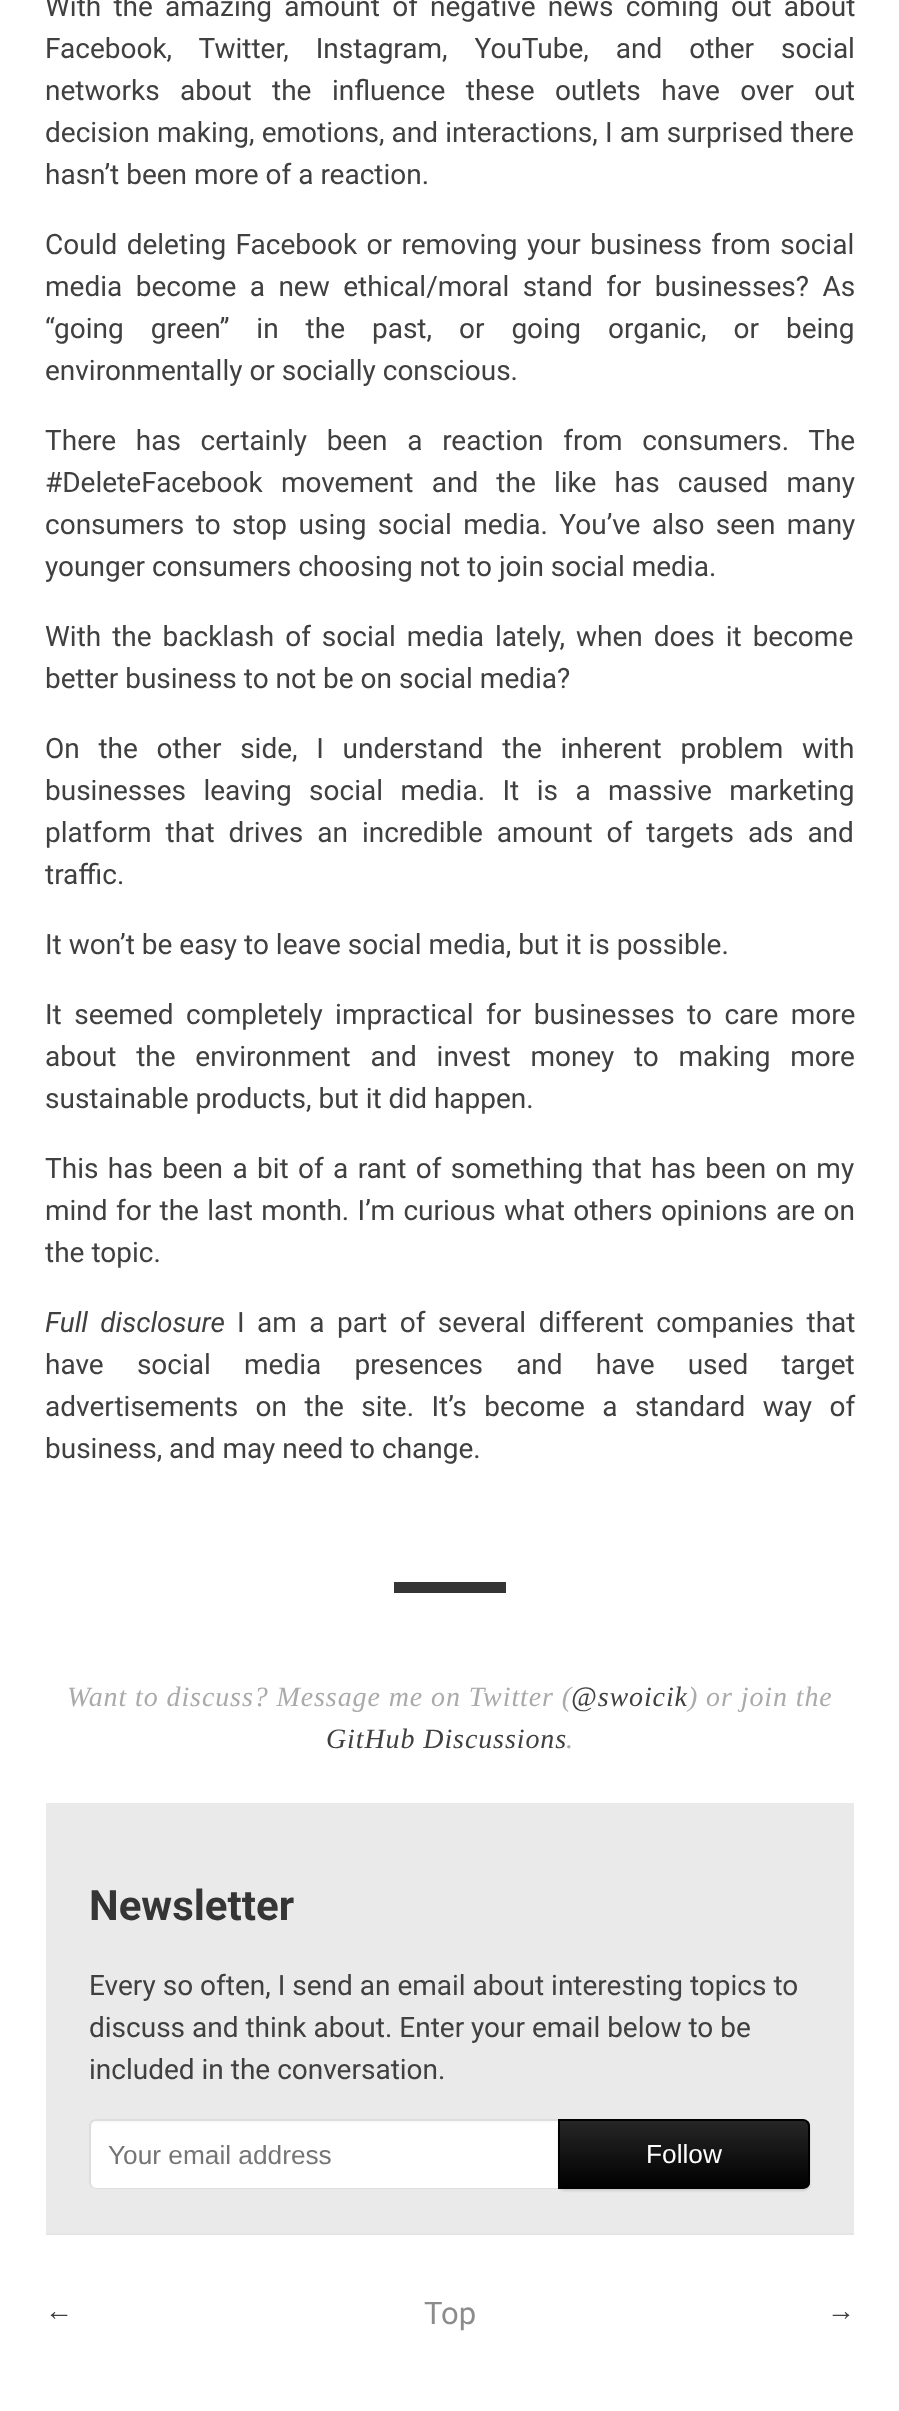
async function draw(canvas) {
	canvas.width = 899;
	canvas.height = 2411;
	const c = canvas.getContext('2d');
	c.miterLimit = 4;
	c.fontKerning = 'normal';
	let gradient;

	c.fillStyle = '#fff';
	c.fillRect(0, 0, 899, 2411);
	c.wordSpacing = '5.25px';
	c.font = '28px Roboto';
	c.fillStyle = '#404040';
	c.fillText('With the amazing amount of negative news coming out about', 45, 16);
	c.wordSpacing = '20px';
	c.fillText('Facebook, Twitter, Instagram, YouTube, and other social', 45, 58);
	c.wordSpacing = '13.5px';
	c.fillText('networks about the influence these outlets have over out', 45, 100);
	c.wordSpacing = '0.25px';
	c.fillText('decision making, emotions, and interactions, I am surprised there', 45, 142);
	c.wordSpacing = '0px';
	c.fillText('hasn’t been more of a reaction.', 45, 184);
	c.wordSpacing = '2.5px';
	c.fillText('Could deleting Facebook or removing your business from social', 45, 254);
	c.wordSpacing = '6.5px';
	c.fillText('media become a new ethical/moral stand for businesses? As', 45, 296);
	c.wordSpacing = '20px';
	c.fillText('“going green” in the past, or going organic, or being', 45, 338);
	c.wordSpacing = '0px';
	c.fillText('environmentally or socially conscious.', 45, 380);
	c.wordSpacing = '12.75px';
	c.fillText('There has certainly been a reaction from consumers. The', 45, 450);
	c.wordSpacing = '11.25px';
	c.fillText('#DeleteFacebook movement and the like has caused many', 45, 492);
	c.wordSpacing = '4.5px';
	c.fillText('consumers to stop using social media. You’ve also seen many', 45, 534);
	c.wordSpacing = '0px';
	c.fillText('younger consumers choosing not to join social media.', 45, 576);
	c.wordSpacing = '4px';
	c.fillText('With the backlash of social media lately, when does it become', 45, 646);
	c.wordSpacing = '0px';
	c.fillText('better business to not be on social media?', 45, 688);
	c.wordSpacing = '11.75px';
	c.fillText('On the other side, I understand the inherent problem with', 45, 758);
	c.wordSpacing = '10.5px';
	c.fillText('businesses leaving social media. It is a massive marketing', 45, 800);
	c.wordSpacing = '7px';
	c.fillText('platform that drives an incredible amount of targets ads and', 45, 842);
	c.wordSpacing = '0px';
	c.fillText('traffic.', 45, 884);
	c.fillText('It won’t be easy to leave social media, but it is possible.', 45, 954);
	c.wordSpacing = '5.5px';
	c.fillText('It seemed completely impractical for businesses to care more', 45, 1024);
	c.wordSpacing = '12.75px';
	c.fillText('about the environment and invest money to making more', 45, 1066);
	c.wordSpacing = '0px';
	c.fillText('sustainable products, but it did happen.', 45, 1108);
	c.wordSpacing = '2.4px';
	c.fillText('This has been a bit of a rant of something that has been on my', 45, 1178);
	c.wordSpacing = '1.4px';
	c.fillText('mind for the last month. I’m curious what others opinions are on', 45, 1220);
	c.wordSpacing = '0px';
	c.fillText('the topic.', 45, 1262);
	c.wordSpacing = '5.5px';
	c.font = 'italic 28px Roboto';
	c.fillText('Full disclosure', 45, 1332);
	c.font = '28px Roboto';
	c.fillText('I am a part of several different companies that', 237, 1332);
	c.wordSpacing = '26.25px';
	c.fillText('have social media presences and have used target', 45, 1374);
	c.wordSpacing = '10.5px';
	c.fillText('advertisements on the site. It’s become a standard way of', 45, 1416);
	c.wordSpacing = '0px';
	c.fillText('business, and may need to change.', 45, 1458);
	c.fillStyle = '#353535';
	c.fillRect(394, 1582, 112, 11);
	c.letterSpacing = '0.9px';
	c.font = 'italic 28px Liberation Serif';
	c.fillStyle = '#aaa';
	c.fillText('Want to discuss? Message me on Twitter (', 67, 1706);
	c.fillStyle = '#404040';
	c.fillText('@swoicik', 571, 1706);
	c.fillStyle = '#aaa';
	c.fillText(') or join the', 688, 1706);
	c.fillStyle = '#404040';
	c.fillText('GitHub Discussions', 326, 1748);
	c.fillStyle = '#aaa';
	c.fillText('.', 566, 1748);
	c.fillStyle = '#eaeaea';
	c.fillRect(46, 1803, 808, 430);
	c.letterSpacing = '0px';
	c.font = 'bold 42px Roboto';
	c.fillStyle = '#353535';
	c.fillText('Newsletter', 89, 1920);
	c.font = '28px Roboto';
	c.fillStyle = '#404040';
	for (const [text, x, y] of [
		['Every so often, I send an email about interesting topics to', 89, 1995],
		['discuss and think about. Enter your email below to be', 89, 2037],
		['included in the conversation.', 89, 2079],
	]) {
		c.fillText(text, x, y);
	}
	c.fillStyle = '#fff';
	c.beginPath();
	c.roundRect(89, 2119, 469, 70, [7, 0, 0, 7]);
	c.fill();
	c.fillStyle = '#fafafa';
	c.beginPath();
	c.moveTo(96, 2123);
	c.lineTo(558, 2123);
	c.lineTo(558, 2121);
	c.lineTo(96, 2121);
	c.bezierCurveTo(93, 2121, 91, 2123, 91, 2126);
	c.lineTo(91, 2128);
	c.bezierCurveTo(91, 2125, 93, 2123, 96, 2123);
	c.closePath();
	c.fill();
	c.fillStyle = '#ddd';
	c.beginPath();
	c.moveTo(96, 2119);
	c.lineTo(558, 2119);
	c.lineTo(558, 2189);
	c.lineTo(96, 2189);
	c.bezierCurveTo(92, 2189, 89, 2186, 89, 2182);
	c.lineTo(89, 2126);
	c.bezierCurveTo(89, 2122, 92, 2119, 96, 2119);
	c.closePath();
	c.moveTo(96, 2121);
	c.lineTo(558, 2121);
	c.lineTo(558, 2188);
	c.lineTo(96, 2188);
	c.bezierCurveTo(93, 2188, 91, 2185, 91, 2182);
	c.lineTo(91, 2126);
	c.bezierCurveTo(91, 2123, 93, 2121, 96, 2121);
	c.closePath();
	c.fill('evenodd');
	c.font = '26.25px Liberation Sans';
	c.fillStyle = '#757575';
	c.fillText('Your email address', 108, 2164);
	c.fillStyle = '#0000001f';
	c.filter = 'blur(1px)';
	c.beginPath();
	c.roundRect(558, 2121, 252, 70, 7);
	c.fill();
	c.filter = 'none';
	c.save();
	c.beginPath();
	c.roundRect(558, 2119, 252, 70, [0, 7, 7, 0]);
	c.clip();
	gradient = c.createLinearGradient(684, 2121, 684, 2188);
	gradient.addColorStop(0, '#262626');
	gradient.addColorStop(1, '#000');
	c.fillStyle = gradient;
	c.fillRect(560, 2121, 250, 67);
	c.restore();
	c.beginPath();
	c.roundRect(559, 2120, 250, 68, [0, 6, 6, 0]);
	c.strokeStyle = '#000';
	c.lineWidth = 2;
	c.stroke();
	c.fillStyle = '#fff';
	c.fillText('Follow', 646, 2163);
	c.fillStyle = '#e5e5e5';
	c.fillRect(46, 2233, 808, 2);
	c.font = '28px Liberation Sans';
	c.fillStyle = '#404040';
	c.fillText('←', 45, 2320);
	c.font = '31px Roboto';
	c.fillStyle = '#8c8c8c';
	c.fillText('Top', 424, 2324);
	c.font = '28px Liberation Sans';
	c.fillStyle = '#404040';
	c.fillText('→', 827, 2320);
}

draw(document.querySelector('canvas'));
